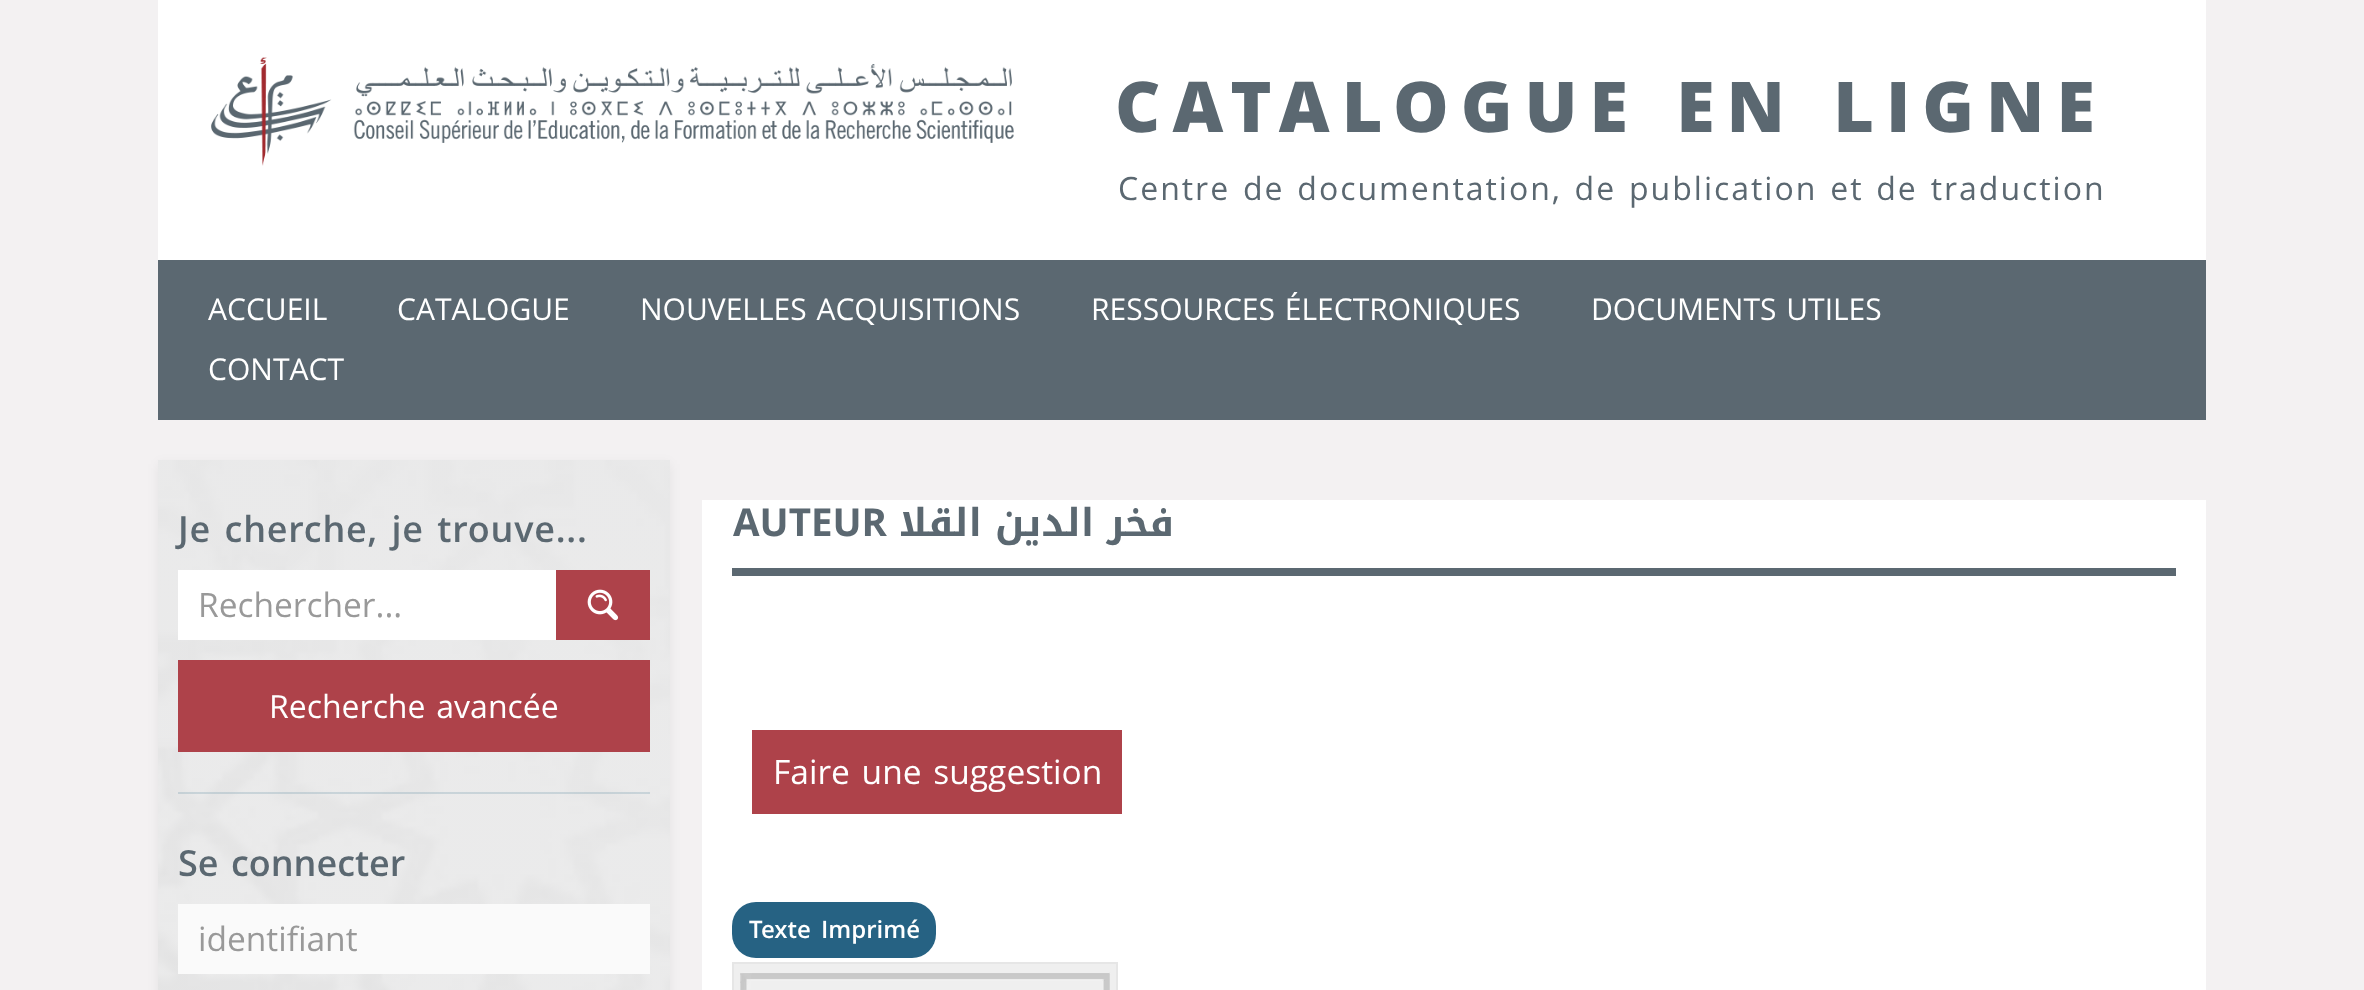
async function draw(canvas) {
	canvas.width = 2364;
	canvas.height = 990;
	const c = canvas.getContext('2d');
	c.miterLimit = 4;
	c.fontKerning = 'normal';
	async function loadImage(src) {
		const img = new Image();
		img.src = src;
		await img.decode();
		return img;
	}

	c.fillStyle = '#f3f1f2';
	c.fillRect(0, 0, 2364, 990);
	c.fillStyle = '#fff';
	c.fillRect(158, 0, 2048, 260);
	c.drawImage(await loadImage('img1.png'), 211, 57, 803, 109);
	c.letterSpacing = '12px';
	c.wordSpacing = '6px';
	c.font = '800 70px Open Sans';
	c.fillStyle = '#5b6871';
	c.fillText('CATALOGUE EN LIGNE', 1115, 132);
	c.letterSpacing = '2px';
	c.wordSpacing = '2.5px';
	c.font = '32px Open Sans';
	c.fillText('Centre de documentation, de publication et de traduction', 1118, 200);
	c.fillRect(158, 260, 2048, 160);
	c.letterSpacing = '0px';
	c.wordSpacing = '0px';
	c.font = '30px Open Sans';
	c.fillStyle = '#fff';
	c.fillText('ACCUEIL', 208, 320);
	c.fillText('CATALOGUE', 397, 320);
	c.wordSpacing = '2px';
	for (const [text, x, y] of [
		['NOUVELLES ACQUISITIONS', 640, 320],
		['RESSOURCES ÉLECTRONIQUES', 1091, 320],
		['DOCUMENTS UTILES', 1591, 320],
	]) {
		c.fillText(text, x, y);
	}
	c.wordSpacing = '0px';
	c.fillText('CONTACT', 208, 380);
	c.fillStyle = '#0000000f';
	c.filter = 'blur(6px)';
	c.beginPath();
	c.rect(158, 464, 512, 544);
	c.fill();
	c.filter = 'none';
	c.drawImage(await loadImage('img2.png'), 158, 460, 512, 530);
	c.fillStyle = '#2662832b';
	c.fillRect(178, 792, 472, 2);
	c.letterSpacing = '0.75px';
	c.wordSpacing = '3.5px';
	c.font = '600 36px Open Sans';
	c.fillStyle = '#5b6871';
	c.fillText('Je cherche, je trouve...', 178, 542);
	c.fillStyle = '#fff';
	c.fillRect(178, 570, 378, 70);
	c.letterSpacing = '0px';
	c.wordSpacing = '0px';
	c.font = '33.5px Open Sans';
	c.fillStyle = '#999';
	c.fillText('Rechercher...', 198, 617);
	c.fillStyle = '#ae424a';
	c.fillRect(556, 570, 94, 70);
	c.drawImage(await loadImage('img3.png'), 587, 589, 32, 32);
	c.fillRect(178, 660, 472, 92);
	c.wordSpacing = '2.5px';
	c.font = '32px Open Sans';
	c.fillStyle = '#fff';
	c.fillText('Recherche avancée', 269, 718);
	c.wordSpacing = '3px';
	c.font = '600 36px Open Sans';
	c.fillStyle = '#5b6871';
	c.fillText('Se connecter', 178, 876);
	c.fillStyle = '#fafafa';
	c.fillRect(178, 904, 472, 70);
	c.wordSpacing = '0px';
	c.font = '33.5px Open Sans';
	c.fillStyle = '#999';
	c.fillText('identifiant', 198, 951);
	c.fillStyle = '#fff';
	c.fillRect(702, 500, 1504, 490);
	c.fillStyle = '#5b6871';
	c.fillRect(732, 568, 1444, 8);
	c.font = 'bold 38.5px Open Sans';
	c.fillText('AUTEUR', 733, 536);
	c.direction = 'rtl';
	c.font = 'bold 38.5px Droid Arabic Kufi';
	c.fillText('فخر الدين القلا', 1174, 536);
	c.fillStyle = '#ae424a';
	c.fillRect(752, 730, 370, 84);
	c.wordSpacing = '3px';
	c.direction = 'ltr';
	c.font = '33.5px Open Sans';
	c.fillStyle = '#fff';
	c.fillText('Faire une suggestion', 773, 784);
	c.fillStyle = '#266283';
	c.beginPath();
	c.roundRect(732, 902, 204, 56, 24);
	c.fill();
	c.wordSpacing = '4px';
	c.font = '600 24px Open Sans';
	c.fillStyle = '#fff';
	c.fillText('Texte Imprimé', 749, 938);
	c.strokeStyle = '#e6e6e6';
	c.lineWidth = 2;
	c.strokeRect(733, 963, 384, 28);
	c.drawImage(await loadImage('img4.png'), 734, 964, 382, 26);
}

draw(document.querySelector('canvas'));
